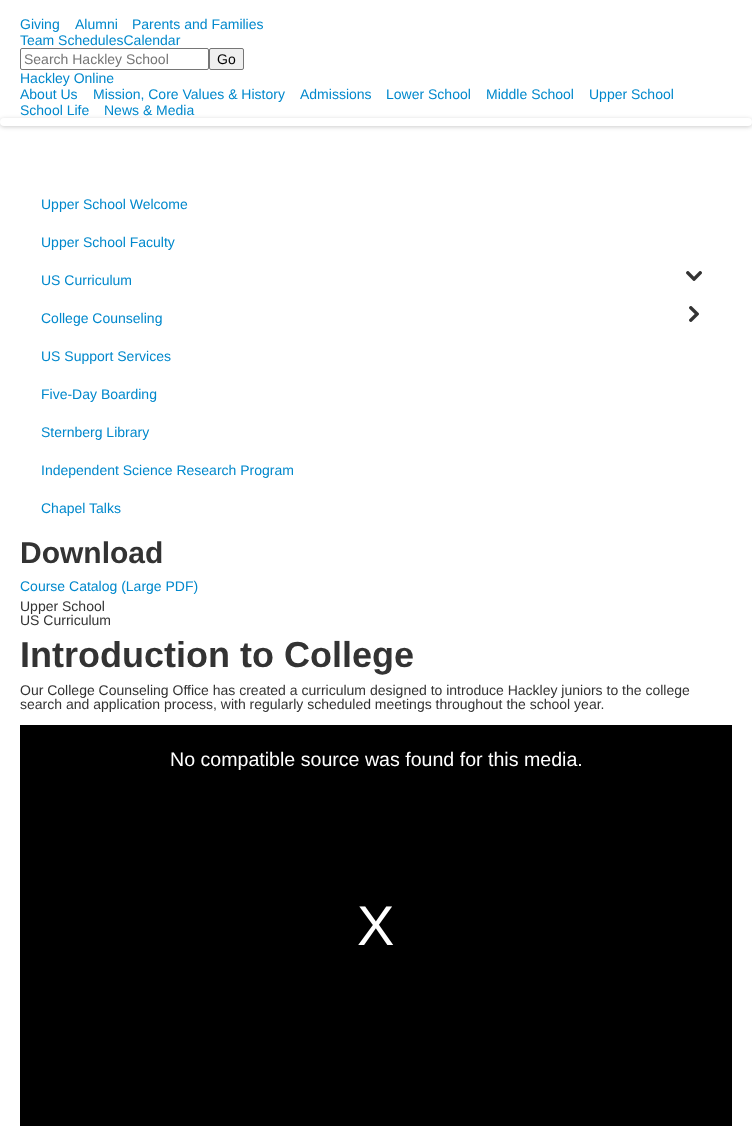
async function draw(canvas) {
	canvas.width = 752;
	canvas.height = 1142;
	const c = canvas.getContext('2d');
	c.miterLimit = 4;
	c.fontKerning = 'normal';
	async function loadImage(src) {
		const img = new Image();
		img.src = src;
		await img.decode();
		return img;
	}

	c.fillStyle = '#fff';
	c.fillRect(0, 0, 752, 1142);
	c.font = '14px Liberation Sans';
	c.fillStyle = '#08c';
	for (const [text, x, y] of [
		['Giving', 20, 29],
		['Alumni', 75, 29],
		['Parents and Families', 132, 29],
		['Team SchedulesCalendar', 20, 45],
	]) {
		c.fillText(text, x, y);
	}
	c.beginPath();
	c.roundRect(20.5, 48.5, 188, 21, 1.5);
	c.strokeStyle = '#767676';
	c.stroke();
	c.fillStyle = '#757575';
	c.fillText('Search Hackley School', 24, 64);
	c.fillStyle = '#efefef';
	c.beginPath();
	c.roundRect(209.5, 48.5, 34, 21, 1.5);
	c.fill();
	c.stroke();
	c.fillStyle = '#000';
	c.fillText('Go', 217, 64);
	c.fillStyle = '#08c';
	for (const [text, x, y] of [
		['Hackley Online', 20, 83],
		['About Us', 20, 99],
		['Mission, Core Values & History', 93, 99],
		['Admissions', 300, 99],
		['Lower School', 386, 99],
		['Middle School', 486, 99],
		['Upper School', 589, 99],
	]) {
		c.fillText(text, x, y);
	}
	c.fillStyle = '#00000033';
	c.filter = 'blur(2px)';
	c.beginPath();
	c.roundRect(0, 119, 752, 8, 4);
	c.fill();
	c.filter = 'none';
	c.fillStyle = '#08c';
	c.fillText('School Life', 20, 115);
	c.fillText('News & Media', 104, 115);
	c.fillStyle = '#fff';
	c.beginPath();
	c.roundRect(0, 118, 752, 8, 4);
	c.fill();
	c.fillStyle = '#08c';
	for (const [text, x, y] of [
		['Upper School Welcome', 41, 209],
		['Upper School Faculty', 41, 247],
		['US Curriculum', 41, 285],
	]) {
		c.fillText(text, x, y);
	}
	c.drawImage(await loadImage('img1.png'), 686, 271, 16, 10);
	c.fillText('College Counseling', 41, 323);
	c.drawImage(await loadImage('img2.png'), 689, 306, 10, 16);
	for (const [text, x, y] of [
		['US Support Services', 41, 361],
		['Five-Day Boarding', 41, 399],
		['Sternberg Library', 41, 437],
		['Independent Science Research Program', 41, 475],
		['Chapel Talks', 41, 513],
	]) {
		c.fillText(text, x, y);
	}
	c.font = 'bold 30px Liberation Sans';
	c.fillStyle = '#333';
	c.fillText('Download', 20, 563);
	c.font = '14px Liberation Sans';
	c.fillStyle = '#08c';
	c.fillText('Course Catalog (Large PDF)', 20, 591);
	c.fillStyle = '#333';
	c.fillText('Upper School', 20, 611);
	c.fillText('US Curriculum', 20, 625);
	c.font = 'bold 36px Liberation Sans';
	c.fillText('Introduction to College', 20, 667);
	c.font = '14px Liberation Sans';
	c.fillText('Our College Counseling Office has created a curriculum designed to introduce Hackley juniors to the college', 20, 695);
	c.fillText('search and application process, with regularly scheduled meetings throughout the school year.', 20, 709);
	c.fillStyle = '#000';
	c.fillRect(20, 725, 712, 401);
	c.font = '19.6px Liberation Sans';
	c.fillStyle = '#fff';
	c.fillText('No compatible source was found for this media.', 170, 766);
	c.font = '56px Liberation Sans';
	c.fillText('X', 357, 945);
}

draw(document.querySelector('canvas'));
